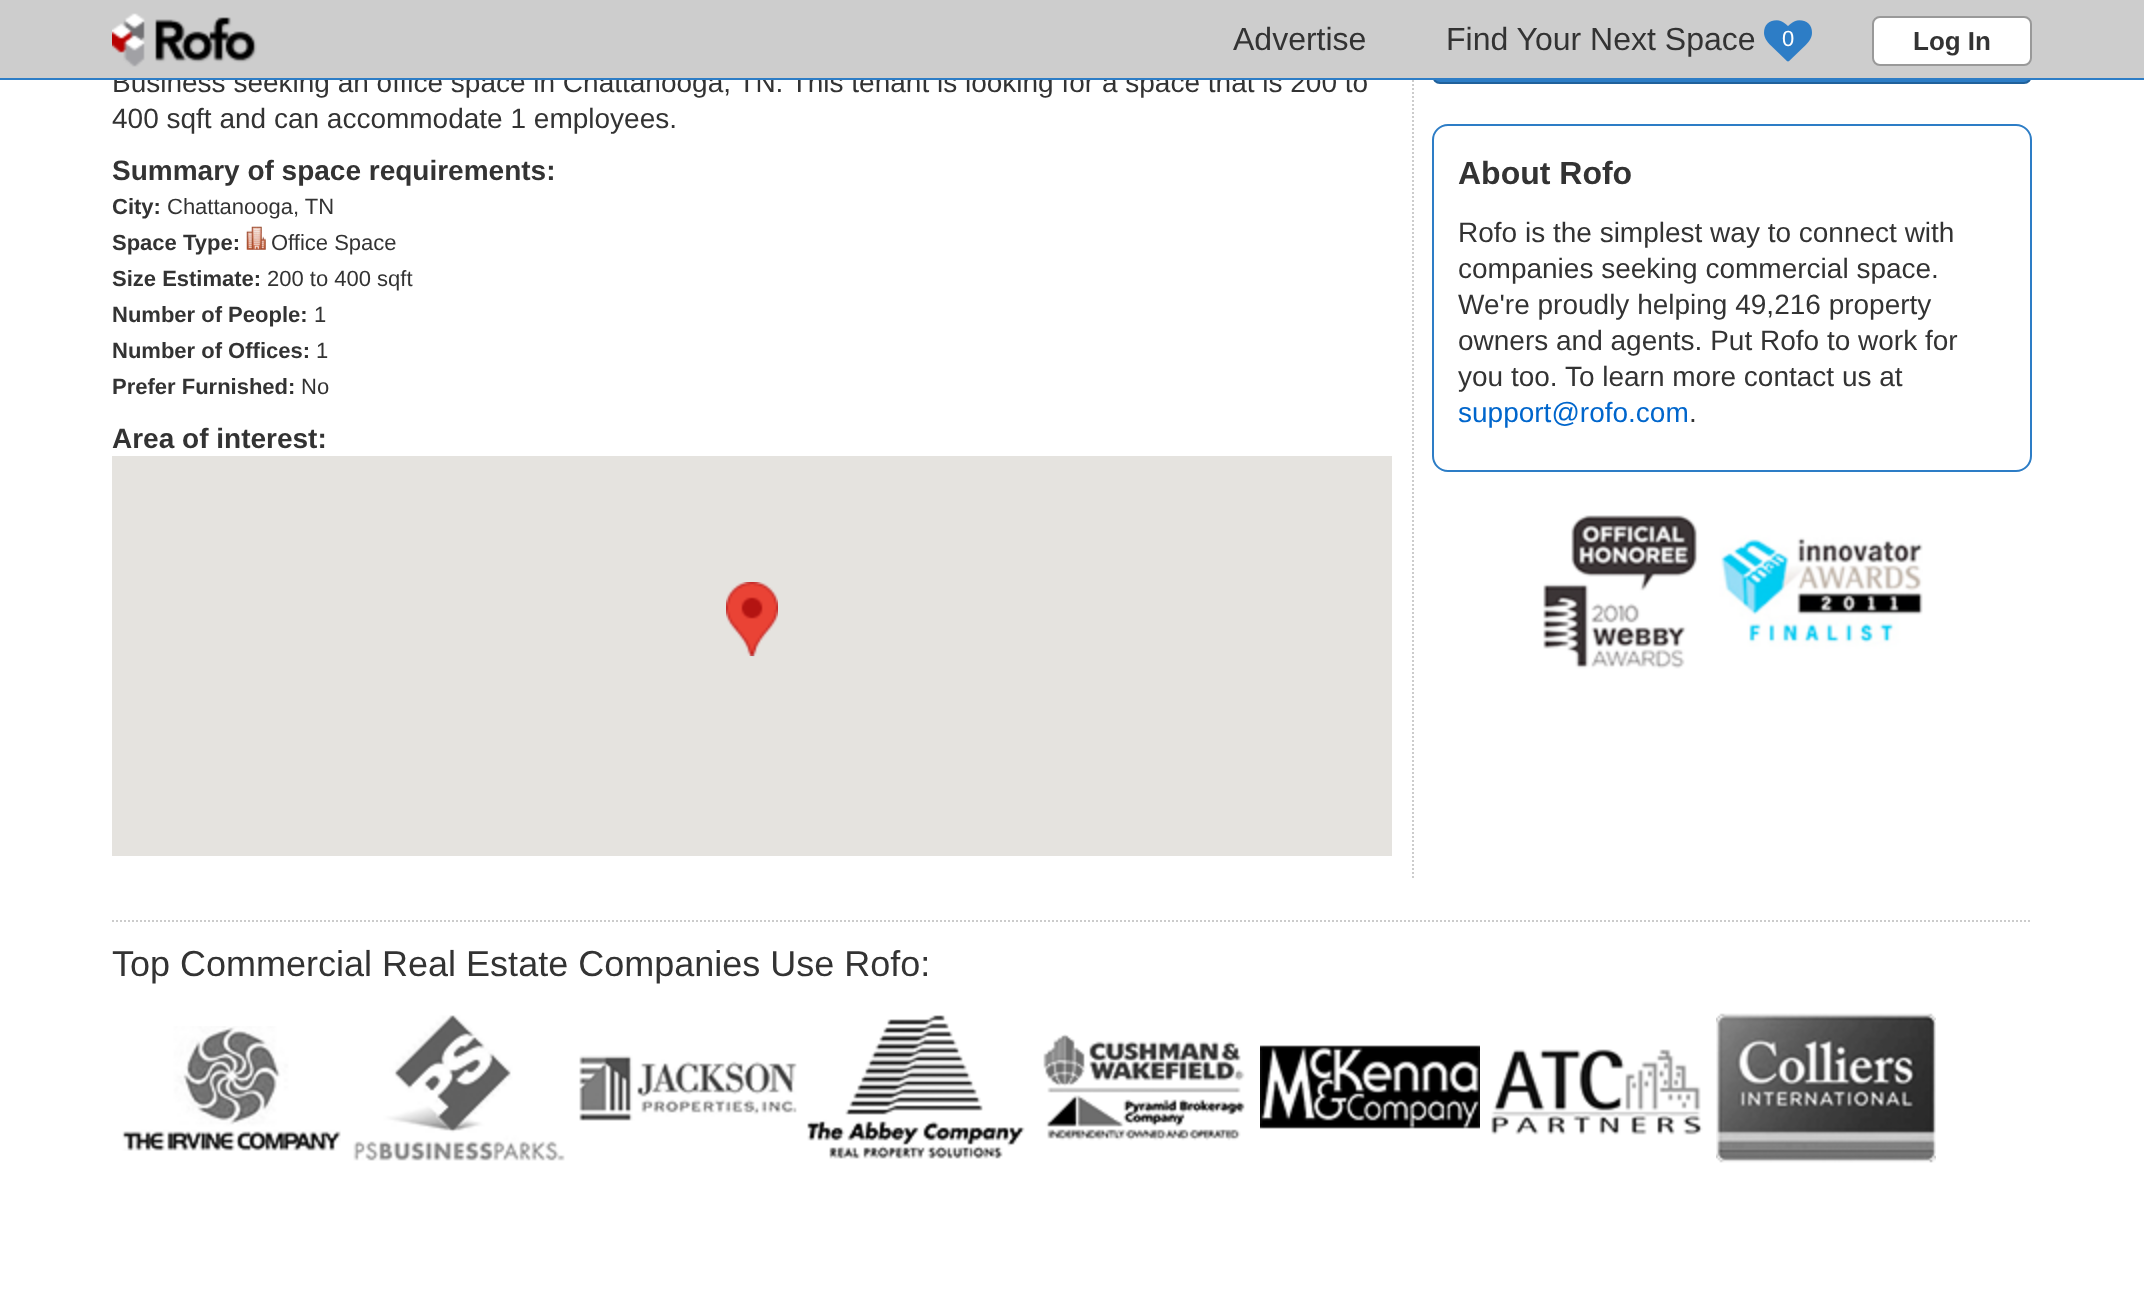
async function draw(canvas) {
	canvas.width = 2144;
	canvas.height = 1316;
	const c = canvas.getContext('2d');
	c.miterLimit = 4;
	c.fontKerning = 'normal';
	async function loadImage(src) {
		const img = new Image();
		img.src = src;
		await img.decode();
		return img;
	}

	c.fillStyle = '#fff';
	c.fillRect(0, 0, 2144, 1316);
	c.beginPath();
	c.moveTo(1413, 12);
	c.lineTo(1413, 880);
	c.strokeStyle = '#ccc';
	c.lineWidth = 2;
	c.setLineDash([2, 2]);
	c.stroke();
	c.font = '28px Liberation Sans';
	c.fillStyle = '#333';
	c.fillText('Business seeking an office space in Chattanooga, TN. This tenant is looking for a space that is 200 to', 112, 92);
	c.fillStyle = '#2d7dc6';
	c.beginPath();
	c.roundRect(1433, 13, 598, 70, 7);
	c.fill();
	c.strokeStyle = '#20619b';
	c.setLineDash([]);
	c.stroke();
	c.fillStyle = '#cdcdcd';
	c.fillRect(0, 0, 2144, 78);
	c.fillStyle = '#2d7dc6';
	c.fillRect(0, 78, 2144, 2);
	c.drawImage(await loadImage('img1.png'), 112, 13, 145, 54);
	c.font = '32px Liberation Sans';
	c.fillStyle = '#333';
	c.fillText('Advertise', 1233, 50);
	c.fillText('Find Your Next Space', 1446, 50);
	c.drawImage(await loadImage('img2.png'), 1764, 20, 48, 42);
	c.font = '22px Liberation Sans';
	c.fillStyle = '#fff';
	c.fillText('0', 1782, 46);
	c.beginPath();
	c.roundRect(1873, 17, 158, 48, 7);
	c.fill();
	c.strokeStyle = '#999';
	c.stroke();
	c.font = 'bold 26px Liberation Sans';
	c.fillStyle = '#333';
	c.fillText('Log In', 1913, 50);
	c.font = '28px Liberation Sans';
	c.fillText('400 sqft and can accommodate 1 employees.', 112, 128);
	c.font = 'bold 28px Liberation Sans';
	c.fillText('Summary of space requirements:', 112, 180);
	c.font = 'bold 22px Liberation Sans';
	c.fillText('City:', 112, 214);
	c.font = '22px Liberation Sans';
	c.fillText('Chattanooga, TN', 167, 214);
	c.font = 'bold 22px Liberation Sans';
	c.fillText('Space Type:', 112, 250);
	c.drawImage(await loadImage('img3.png'), 246, 226, 20, 24);
	c.font = '22px Liberation Sans';
	c.fillText('Office Space', 271, 250);
	c.font = 'bold 22px Liberation Sans';
	c.fillText('Size Estimate:', 112, 286);
	c.font = '22px Liberation Sans';
	c.fillText('200 to 400 sqft', 267, 286);
	c.font = 'bold 22px Liberation Sans';
	c.fillText('Number of People:', 112, 322);
	c.font = '22px Liberation Sans';
	c.fillText('1', 314, 322);
	c.font = 'bold 22px Liberation Sans';
	c.fillText('Number of Offices:', 112, 358);
	c.font = '22px Liberation Sans';
	c.fillText('1', 316, 358);
	c.font = 'bold 22px Liberation Sans';
	c.fillText('Prefer Furnished:', 112, 394);
	c.font = '22px Liberation Sans';
	c.fillText('No', 301, 394);
	c.font = 'bold 28px Liberation Sans';
	c.fillText('Area of interest:', 112, 448);
	c.fillStyle = '#e5e3df';
	c.fillRect(112, 456, 1280, 400);
	c.drawImage(await loadImage('img5.png'), 750, 653, 5, 4);
	c.drawImage(await loadImage('img4.png'), 726, 582, 52, 74);
	c.beginPath();
	c.roundRect(1433, 125, 598, 346, 15);
	c.strokeStyle = '#2d7dc6';
	c.stroke();
	c.font = 'bold 32px Liberation Sans';
	c.fillStyle = '#333';
	c.fillText('About Rofo', 1458, 184);
	c.font = '28px Liberation Sans';
	for (const [text, x, y] of [
		['Rofo is the simplest way to connect with', 1458, 242],
		['companies seeking commercial space.', 1458, 278],
		['We\'re proudly helping 49,216 property', 1458, 314],
		['owners and agents. Put Rofo to work for', 1458, 350],
		['you too. To learn more contact us at', 1458, 386],
	]) {
		c.fillText(text, x, y);
	}
	c.fillStyle = '#06c';
	c.fillText('support@rofo.com', 1458, 422);
	c.fillStyle = '#333';
	c.fillText('.', 1689, 422);
	c.drawImage(await loadImage('img6.png'), 1543, 515, 380, 154);
	c.beginPath();
	c.moveTo(112, 921);
	c.lineTo(2032, 921);
	c.strokeStyle = '#ccc';
	c.setLineDash([2, 2]);
	c.stroke();
	c.font = '36px Liberation Sans';
	c.fillText('Top Commercial Real Estate Companies Use Rofo:', 112, 976);
	c.drawImage(await loadImage('img7.png'), 122, 1026, 219, 125);
	c.drawImage(await loadImage('img8.png'), 353, 1015, 212, 146);
	c.drawImage(await loadImage('img9.png'), 579, 1055, 218, 66);
	c.drawImage(await loadImage('img10.png'), 807, 1015, 218, 144);
	c.drawImage(await loadImage('img11.png'), 1043, 1034, 202, 107);
	c.drawImage(await loadImage('img12.png'), 1260, 1045, 220, 84);
	c.drawImage(await loadImage('img13.png'), 1491, 1049, 212, 86);
	c.drawImage(await loadImage('img14.png'), 1716, 1013, 220, 150);
}

draw(document.querySelector('canvas'));
